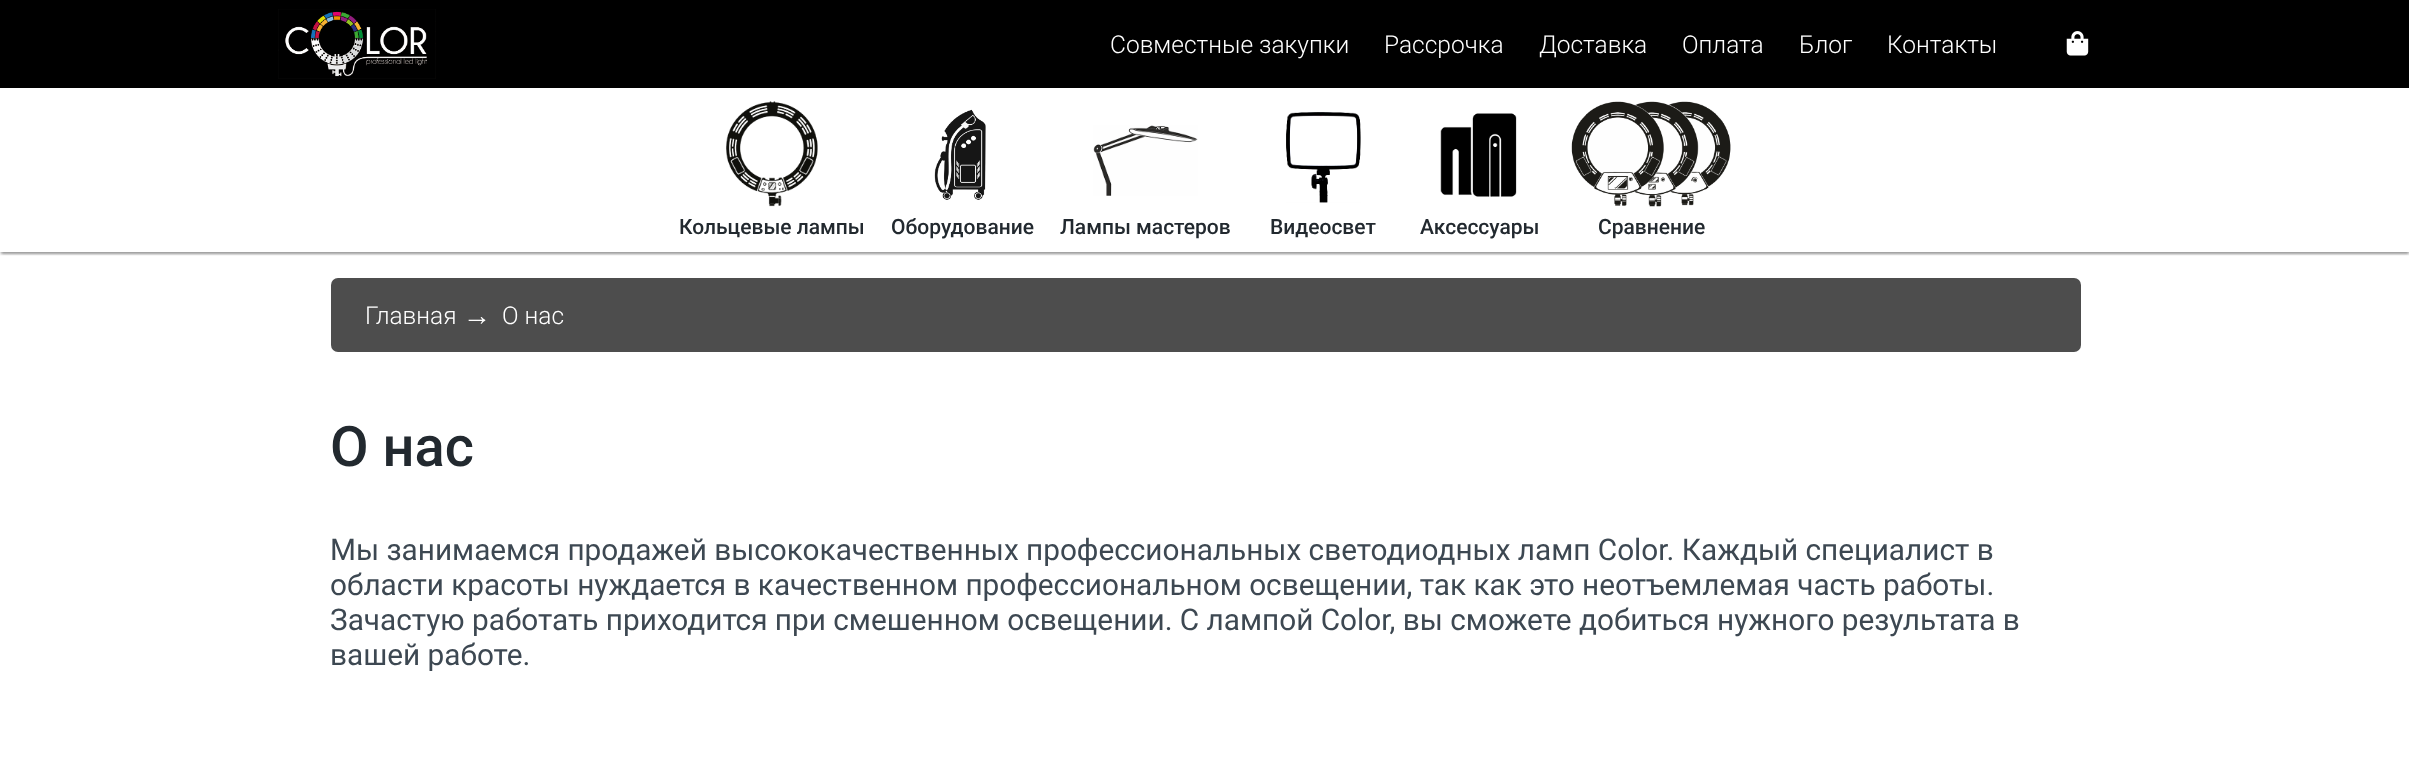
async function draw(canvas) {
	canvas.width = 2409;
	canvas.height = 758;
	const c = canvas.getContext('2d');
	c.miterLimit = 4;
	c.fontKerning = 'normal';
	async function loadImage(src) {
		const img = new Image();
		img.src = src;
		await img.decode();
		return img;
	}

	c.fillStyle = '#fff';
	c.fillRect(0, 0, 2409, 758);
	c.fillStyle = '#000';
	c.fillRect(0, 0, 2409, 88);
	c.drawImage(await loadImage('img1.png'), 278, 9, 158, 70);
	c.font = '300 24.5px Roboto';
	c.fillStyle = '#fff';
	for (const [text, x, y] of [
		['Совместные закупки', 1110, 53],
		['Рассрочка', 1384, 53],
		['Доставка', 1539, 53],
		['Оплата', 1682, 53],
		['Блог', 1799, 53],
		['Контакты', 1887, 53],
	]) {
		c.fillText(text, x, y);
	}
	c.drawImage(await loadImage('img2.png'), 2066, 31, 23, 25);
	c.save();
	c.beginPath();
	c.rect(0, 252, 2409, 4);
	c.clip();
	c.fillStyle = '#0000001f';
	c.filter = 'blur(2.5px)';
	c.beginPath();
	c.rect(0, 89, 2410, 165);
	c.fill();
	c.filter = 'none';
	c.restore();
	c.save();
	c.beginPath();
	c.rect(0, 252, 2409, 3);
	c.clip();
	c.fillStyle = '#00000024';
	c.filter = 'blur(1px)';
	c.beginPath();
	c.rect(0, 89, 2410, 165);
	c.fill();
	c.filter = 'none';
	c.restore();
	c.save();
	c.beginPath();
	c.rect(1, 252, 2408, 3);
	c.clip();
	c.fillStyle = '#00000033';
	c.filter = 'blur(1px)';
	c.beginPath();
	c.rect(2, 93, 2406, 161);
	c.fill();
	c.filter = 'none';
	c.restore();
	c.drawImage(await loadImage('img3.png'), 726, 101, 92, 106);
	c.font = '500 21px Roboto';
	c.fillStyle = '#22292f';
	c.fillText('Кольцевые лампы', 679, 234);
	c.drawImage(await loadImage('img4.png'), 934, 109, 52, 91);
	c.fillText('Оборудование', 891, 234);
	c.drawImage(await loadImage('img5.png'), 1093, 125, 105, 71);
	c.fillText('Лампы мастеров', 1060, 234);
	c.drawImage(await loadImage('img6.png'), 1286, 112, 75, 91);
	c.fillText('Видеосвет', 1270, 234);
	c.drawImage(await loadImage('img7.png'), 1440, 113, 77, 84);
	c.fillText('Аксессуары', 1420, 234);
	c.drawImage(await loadImage('img8.png'), 1571, 101, 160, 106);
	c.fillText('Сравнение', 1598, 234);
	c.fillStyle = '#4d4d4d';
	c.beginPath();
	c.roundRect(331, 278, 1750, 74, 7);
	c.fill();
	c.font = '300 24.5px Roboto';
	c.fillStyle = '#fff';
	c.fillText('Главная', 365, 324);
	c.font = '28px Liberation Sans';
	c.fillText('→', 463, 325);
	c.font = '300 24.5px Roboto';
	c.fillText('О нас', 502, 324);
	c.font = '500 56px Roboto';
	c.fillStyle = '#22292f';
	c.fillText('О нас', 330, 466);
	c.font = '29.75px Roboto';
	c.fillStyle = '#3d4852';
	for (const [text, x, y] of [
		['Мы занимаемся продажей высококачественных профессиональных светодиодных ламп Color. Каждый специалист в', 330, 560],
		['области красоты нуждается в качественном профессиональном освещении, так как это неотъемлемая часть работы.', 330, 595],
		['Зачастую работать приходится при смешенном освещении. С лампой Color, вы сможете добиться нужного результата в', 330, 630],
		['вашей работе.', 330, 665],
	]) {
		c.fillText(text, x, y);
	}
}

draw(document.querySelector('canvas'));
